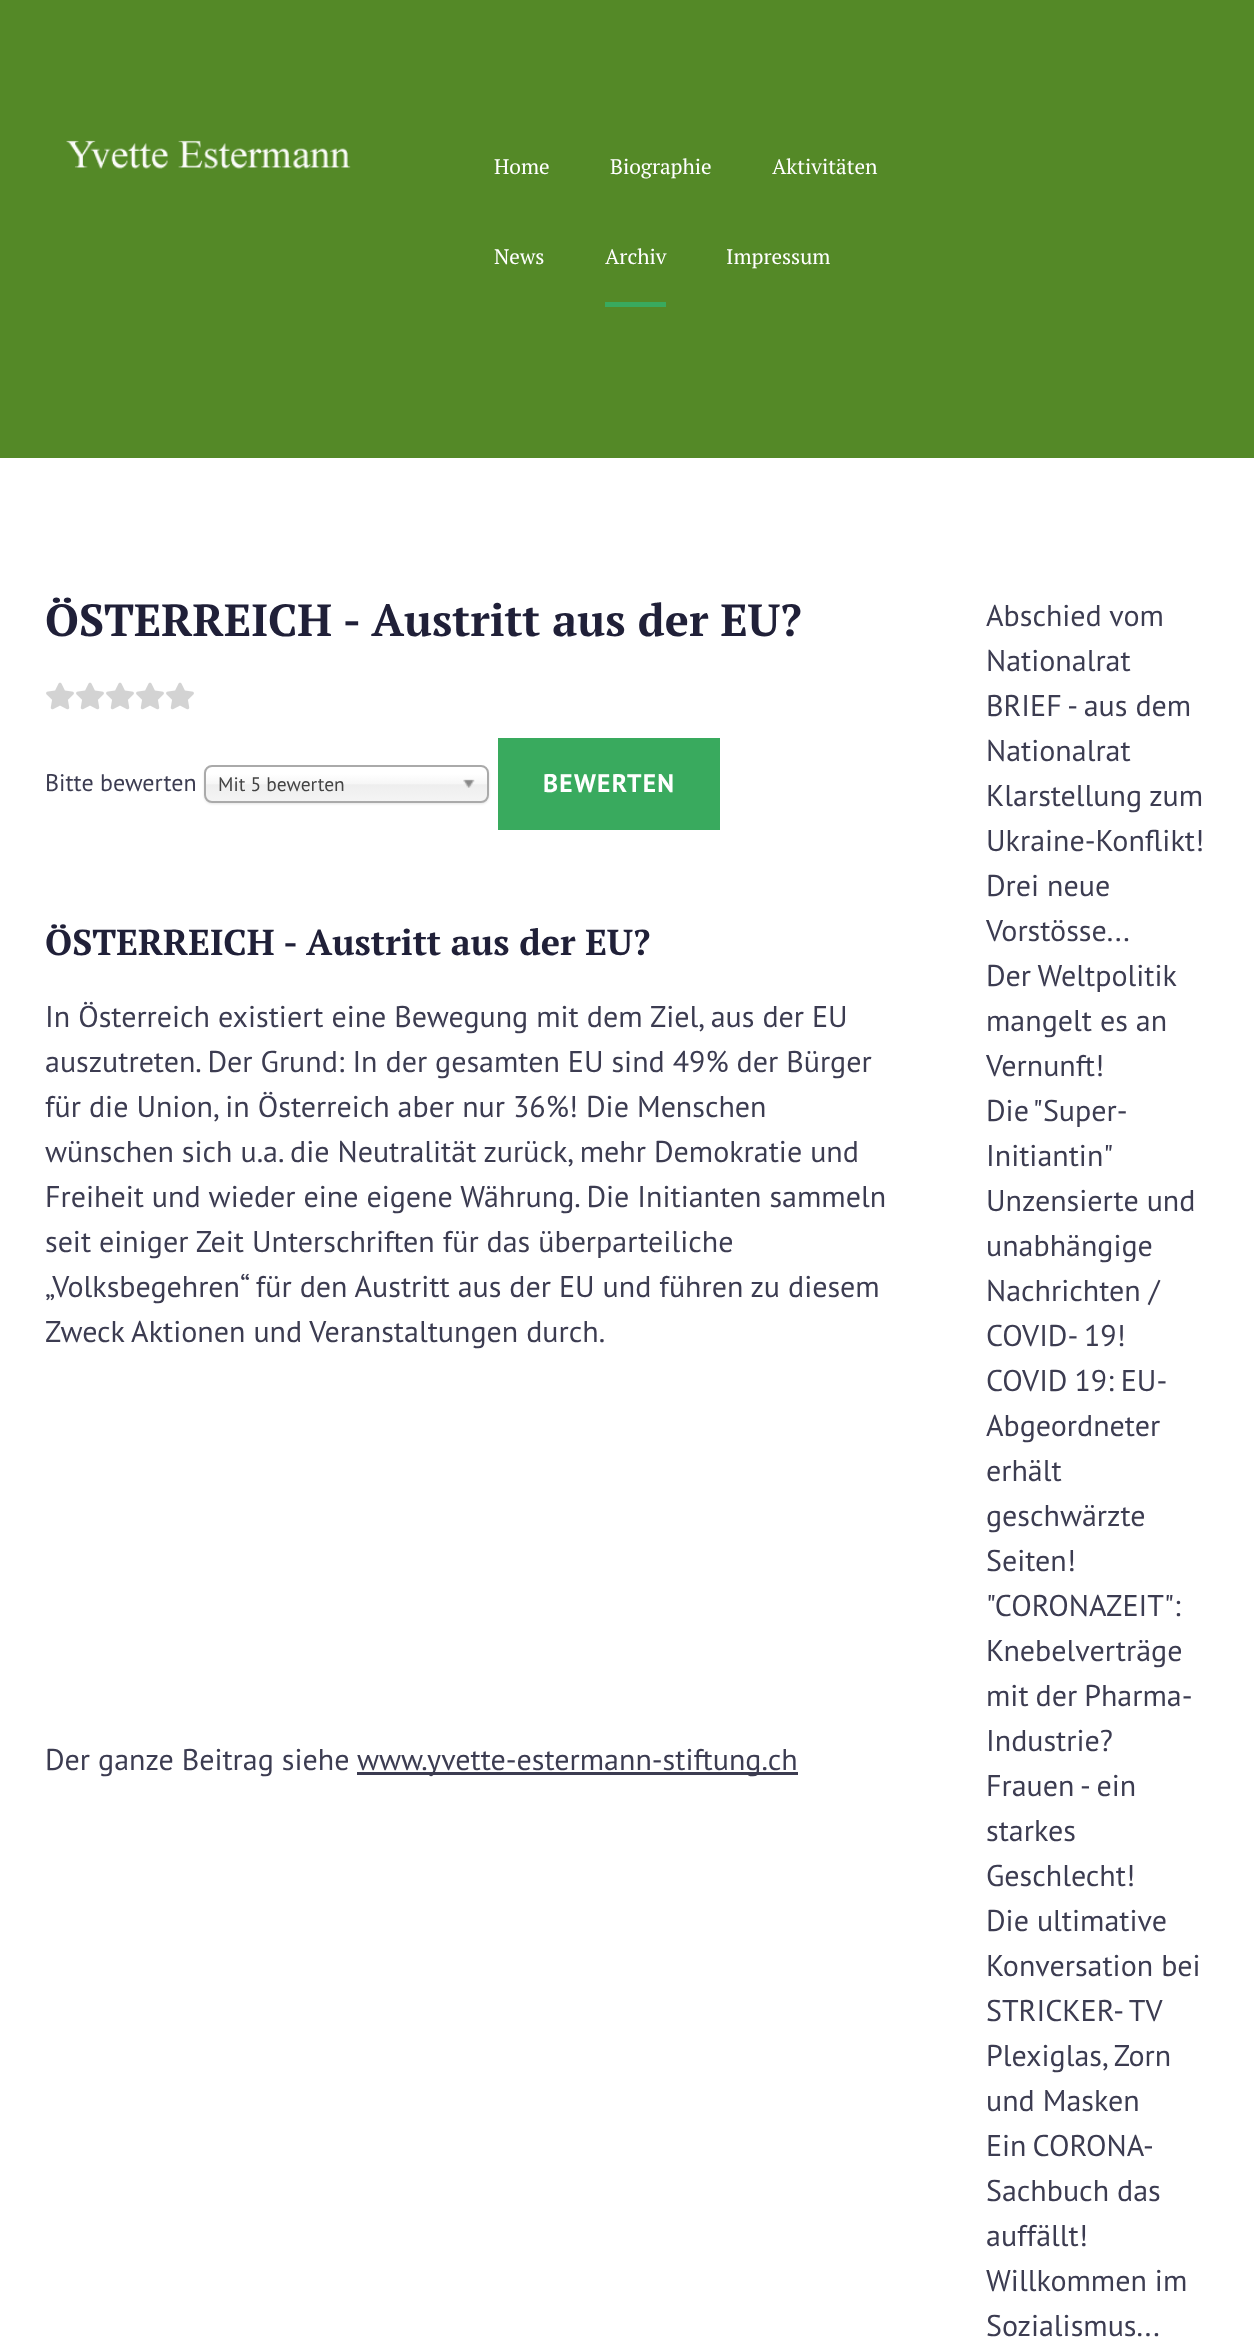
async function draw(canvas) {
	canvas.width = 1254;
	canvas.height = 2344;
	const c = canvas.getContext('2d');
	c.miterLimit = 4;
	c.fontKerning = 'normal';
	async function loadImage(src) {
		const img = new Image();
		img.src = src;
		await img.decode();
		return img;
	}
	let gradient;

	c.fillStyle = '#fff';
	c.fillRect(0, 0, 1254, 2344);
	c.fillStyle = '#548927';
	c.fillRect(0, 0, 1254, 458);
	c.drawImage(await loadImage('img1.png'), 66, 140, 285, 29);
	c.font = '21px PT Serif';
	c.fillStyle = '#fff';
	for (const [text, x, y] of [
		['Home', 494, 174],
		['Biographie', 610, 174],
		['Aktivitäten', 772, 174],
		['News', 494, 264],
		['Archiv', 605, 264],
	]) {
		c.fillText(text, x, y);
	}
	c.fillStyle = '#39aa5e';
	c.fillRect(605, 302, 61, 5);
	c.fillStyle = '#fff';
	c.fillText('Impressum', 726, 264);
	c.font = 'bold 45px PT Serif';
	c.fillStyle = '#202038';
	c.fillText('ÖSTERREICH - Austritt aus der EU?', 45, 636);
	c.drawImage(await loadImage('img2.png'), 46, 682, 28, 28);
	c.drawImage(await loadImage('img2.png'), 76, 682, 28, 28);
	c.drawImage(await loadImage('img2.png'), 106, 682, 28, 28);
	c.drawImage(await loadImage('img2.png'), 136, 682, 28, 28);
	c.drawImage(await loadImage('img2.png'), 166, 682, 28, 28);
	c.font = '24px PT Sans';
	c.fillStyle = '#3c3c51';
	c.fillText('Bitte bewerten', 45, 791);
	c.fillStyle = '#0000001a';
	c.filter = 'blur(1px)';
	c.beginPath();
	c.roundRect(204, 767, 285, 37, 8);
	c.fill();
	c.filter = 'none';
	gradient = c.createLinearGradient(347, 767, 347, 801);
	gradient.addColorStop(0.2, '#fff');
	gradient.addColorStop(0.5, '#f6f6f6');
	gradient.addColorStop(0.52, '#eee');
	gradient.addColorStop(1, '#f4f4f4');
	c.fillStyle = gradient;
	c.beginPath();
	c.roundRect(206, 767, 282, 34, 6);
	c.fill();
	c.beginPath();
	c.roundRect(205, 766, 283, 36, 7);
	c.strokeStyle = '#aaa';
	c.lineWidth = 2;
	c.stroke();
	c.font = '19.5px PT Sans';
	c.fillStyle = '#444';
	c.fillText('Mit 5 bewerten', 218, 791);
	c.drawImage(await loadImage('img3.png'), 463, 779, 12, 9);
	c.fillStyle = '#39aa5e';
	c.fillRect(498, 738, 222, 92);
	c.letterSpacing = '1.25px';
	c.font = 'bold 25.5px PT Sans';
	c.fillStyle = '#fff';
	c.fillText('BEWERTEN', 543, 792);
	c.letterSpacing = '0px';
	c.font = 'bold 36px PT Serif';
	c.fillStyle = '#202038';
	c.fillText('ÖSTERREICH - Austritt aus der EU?', 45, 955);
	c.font = '30px PT Sans';
	c.fillStyle = '#3c3c51';
	for (const [text, x, y] of [
		['In Österreich existiert eine Bewegung mit dem Ziel, aus der EU', 45, 1027],
		['auszutreten. Der Grund: In der gesamten EU sind 49% der Bürger', 45, 1072],
		['für die Union, in Österreich aber nur 36%! Die Menschen', 45, 1117],
		['wünschen sich u.a. die Neutralität zurück, mehr Demokratie und', 45, 1162],
		['Freiheit und wieder eine eigene Währung. Die Initianten sammeln', 45, 1207],
		['seit einiger Zeit Unterschriften für das überparteiliche', 45, 1252],
		['„Volksbegehren“ für den Austritt aus der EU und führen zu diesem', 45, 1297],
		['Zweck Aktionen und Veranstaltungen durch.', 45, 1342],
		['Der ganze Beitrag siehe', 45, 1770],
	]) {
		c.fillText(text, x, y);
	}
	c.fillRect(357, 1772, 441, 3);
	for (const [text, x, y] of [
		['www.yvette-estermann-stiftung.ch', 357, 1770],
		['Abschied vom', 986, 626],
		['Nationalrat', 986, 671],
		['BRIEF - aus dem', 986, 716],
		['Nationalrat', 986, 761],
		['Klarstellung zum', 986, 806],
		['Ukraine-Konflikt!', 986, 851],
		['Drei neue', 986, 896],
		['Vorstösse...', 986, 941],
	]) {
		c.fillText(text, x, y);
	}
	c.wordSpacing = '-1px';
	c.fillText('Der Weltpolitik', 986, 986);
	c.wordSpacing = '0px';
	c.fillText('mangelt es an', 986, 1031);
	c.fillText('Vernunft!', 986, 1076);
	c.wordSpacing = '-2px';
	c.fillText('Die "Super-', 986, 1121);
	c.wordSpacing = '0px';
	for (const [text, x, y] of [
		['Initiantin"', 986, 1166],
		['Unzensierte und', 986, 1211],
		['unabhängige', 986, 1256],
		['Nachrichten /', 986, 1301],
		['COVID- 19!', 986, 1346],
	]) {
		c.fillText(text, x, y);
	}
	c.wordSpacing = '-1px';
	c.fillText('COVID 19: EU-', 986, 1391);
	c.wordSpacing = '0px';
	for (const [text, x, y] of [
		['Abgeordneter', 986, 1436],
		['erhält', 986, 1481],
		['geschwärzte', 986, 1526],
		['Seiten!', 986, 1571],
		['"CORONAZEIT":', 986, 1616],
		['Knebelverträge', 986, 1661],
	]) {
		c.fillText(text, x, y);
	}
	c.wordSpacing = '-1px';
	c.fillText('mit der Pharma-', 986, 1706);
	c.wordSpacing = '0px';
	for (const [text, x, y] of [
		['Industrie?', 986, 1751],
		['Frauen - ein', 986, 1796],
		['starkes', 986, 1841],
		['Geschlecht!', 986, 1886],
		['Die ultimative', 986, 1931],
		['Konversation bei', 986, 1976],
		['STRICKER- TV', 986, 2021],
		['Plexiglas, Zorn', 986, 2066],
		['und Masken', 986, 2111],
	]) {
		c.fillText(text, x, y);
	}
	c.wordSpacing = '-2px';
	c.fillText('Ein CORONA-', 986, 2156);
	c.wordSpacing = '0px';
	for (const [text, x, y] of [
		['Sachbuch das', 986, 2201],
		['auffällt!', 986, 2246],
		['Willkommen im', 986, 2291],
		['Sozialismus...', 986, 2336],
	]) {
		c.fillText(text, x, y);
	}
}

draw(document.querySelector('canvas'));
